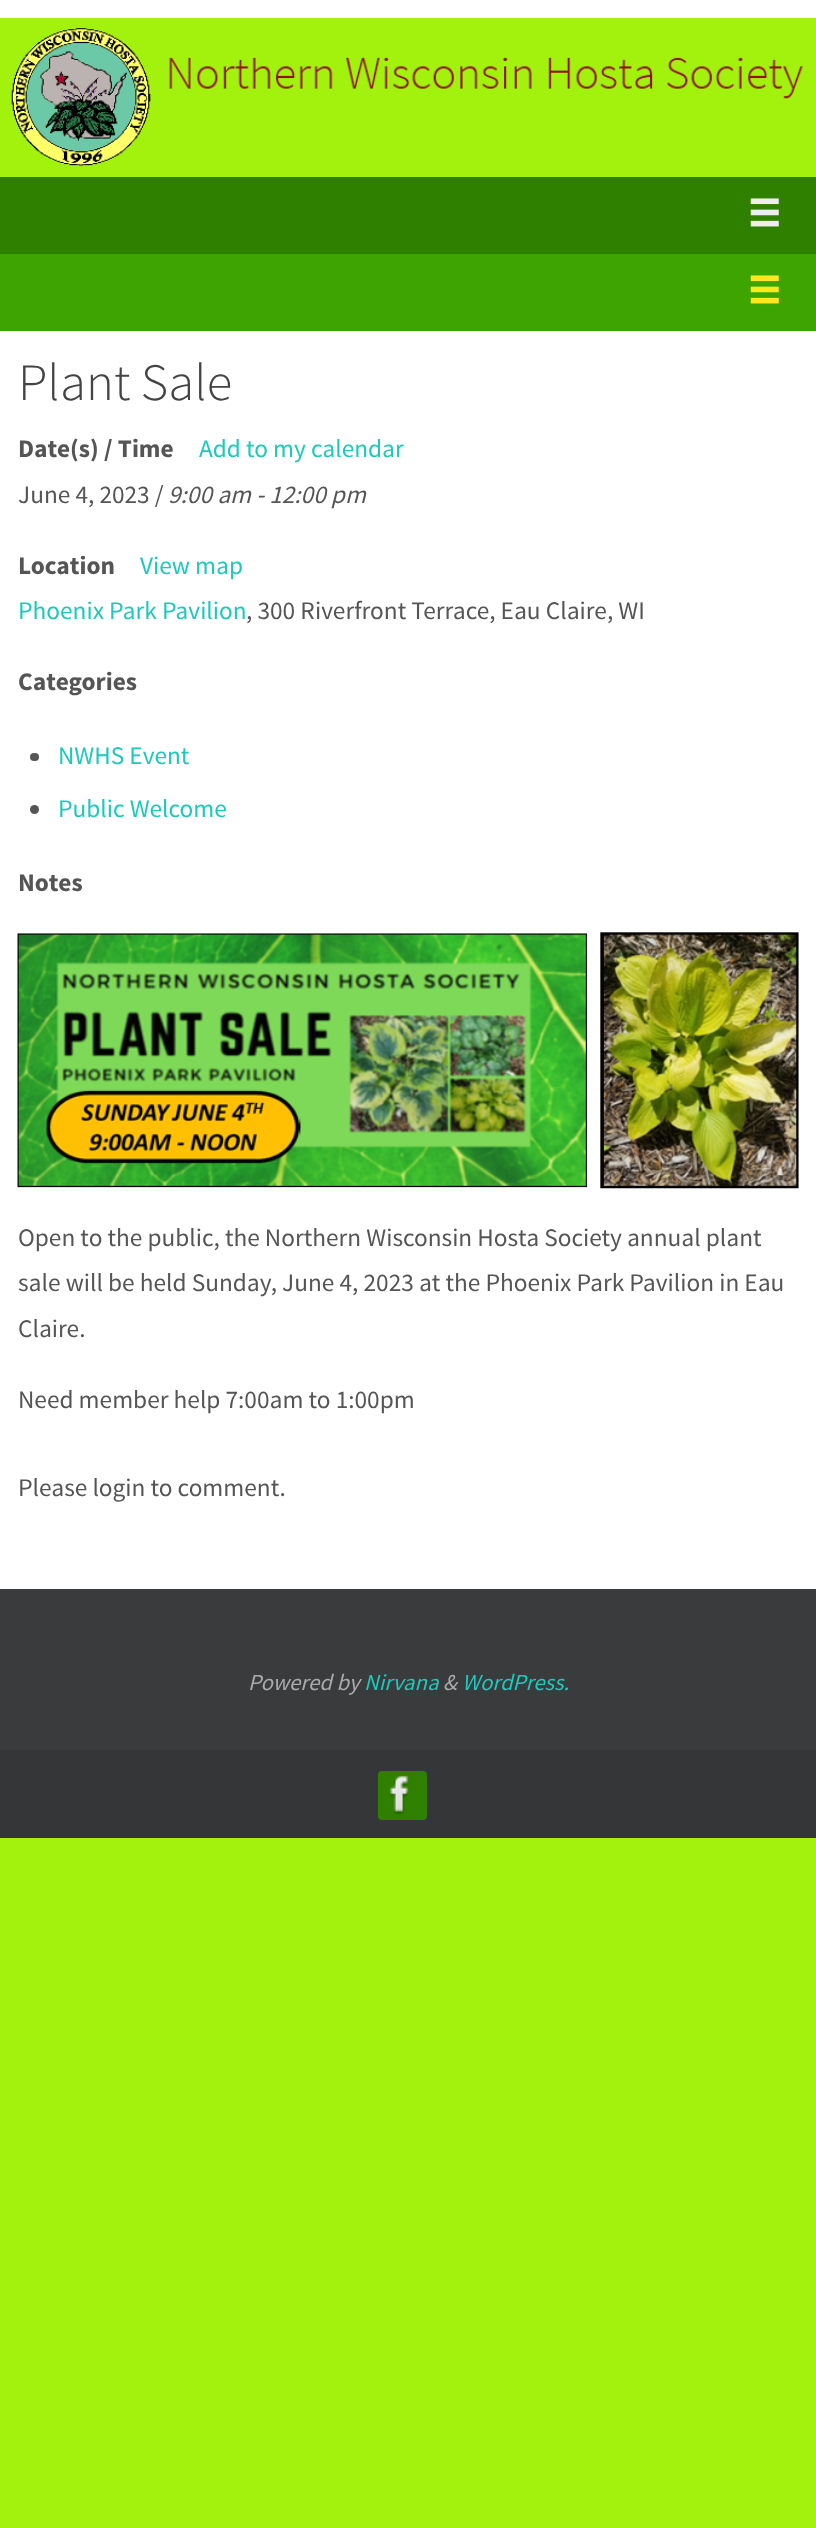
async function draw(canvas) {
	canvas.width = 816;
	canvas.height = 2528;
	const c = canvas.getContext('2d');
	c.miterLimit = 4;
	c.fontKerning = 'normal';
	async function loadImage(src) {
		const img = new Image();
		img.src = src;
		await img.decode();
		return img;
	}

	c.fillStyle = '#a2f20e';
	c.fillRect(0, 0, 816, 2528);
	c.fillStyle = '#fff';
	c.fillRect(0, 0, 816, 18);
	c.drawImage(await loadImage('img1.png'), 11, 28, 792, 139);
	c.fillStyle = '#308000';
	c.fillRect(0, 177, 816, 77);
	c.drawImage(await loadImage('img2.png'), 750, 198, 29, 29);
	c.fillStyle = '#3ea401';
	c.fillRect(0, 254, 816, 77);
	c.drawImage(await loadImage('img3.png'), 750, 275, 29, 29);
	c.fillStyle = '#fff';
	c.fillRect(0, 331, 816, 1258);
	c.font = '300 52.5px Source Sans Pro';
	c.fillStyle = '#444';
	c.fillText('Plant Sale', 18, 400);
	c.font = 'bold 25.3px Source Sans Pro';
	c.fillStyle = '#555';
	c.fillText('Date(s) / Time', 18, 457);
	c.font = '25.3px Source Sans Pro';
	c.fillStyle = '#1ec8bb';
	c.fillText('Add to my calendar', 199, 457);
	c.fillStyle = '#555';
	c.fillText('June 4, 2023 /', 18, 503);
	c.font = 'italic 25.3px Source Sans Pro';
	c.fillText('9:00 am - 12:00 pm', 168, 503);
	c.font = 'bold 25.3px Source Sans Pro';
	c.fillText('Location', 18, 574);
	c.font = '25.3px Source Sans Pro';
	c.fillStyle = '#1ec8bb';
	c.fillText('View map', 140, 574);
	c.fillText('Phoenix Park Pavilion', 18, 619);
	c.fillStyle = '#555';
	c.fillText(', 300 Riverfront Terrace, Eau Claire, WI', 246, 619);
	c.font = 'bold 25.3px Source Sans Pro';
	c.fillText('Categories', 18, 690);
	c.beginPath();
	c.roundRect(30, 753, 9, 8, 4);
	c.fill();
	c.font = '25.3px Source Sans Pro';
	c.fillStyle = '#1ec8bb';
	c.fillText('NWHS Event', 58, 764);
	c.fillStyle = '#555';
	c.beginPath();
	c.arc(34.5, 809.5, 4.5, 0, 2 * Math.PI);
	c.fill();
	c.fillStyle = '#1ec8bb';
	c.fillText('Public Welcome', 58, 817);
	c.font = 'bold 25.3px Source Sans Pro';
	c.fillStyle = '#555';
	c.fillText('Notes', 18, 891);
	c.drawImage(await loadImage('img4.png'), 17, 932, 782, 257);
	c.font = '25.3px Source Sans Pro';
	for (const [text, x, y] of [
		['Open to the public, the Northern Wisconsin Hosta Society annual plant', 18, 1246],
		['sale will be held Sunday, June 4, 2023 at the Phoenix Park Pavilion in Eau', 18, 1291],
		['Claire.', 18, 1337],
		['Need member help 7:00am to 1:00pm', 18, 1408],
		['Please login to comment.', 18, 1496],
	]) {
		c.fillText(text, x, y);
	}
	c.fillStyle = '#3a3b3d';
	c.fillRect(0, 1589, 816, 161);
	c.font = 'italic 22.75px Source Sans Pro';
	c.fillStyle = '#aaa';
	c.fillText('Powered by', 248, 1690);
	c.fillStyle = '#1ec8bb';
	c.fillText('Nirvana', 364, 1690);
	c.fillStyle = '#aaa';
	c.fillText('&', 443, 1690);
	c.fillStyle = '#1ec8bb';
	c.fillText('WordPress.', 462, 1690);
	c.fillStyle = '#353638';
	c.fillRect(0, 1750, 816, 88);
	c.fillStyle = '#308000';
	c.beginPath();
	c.roundRect(378, 1771, 49, 49, 4);
	c.fill();
	c.drawImage(await loadImage('img5.png'), 389, 1775, 20, 40);
}

draw(document.querySelector('canvas'));
